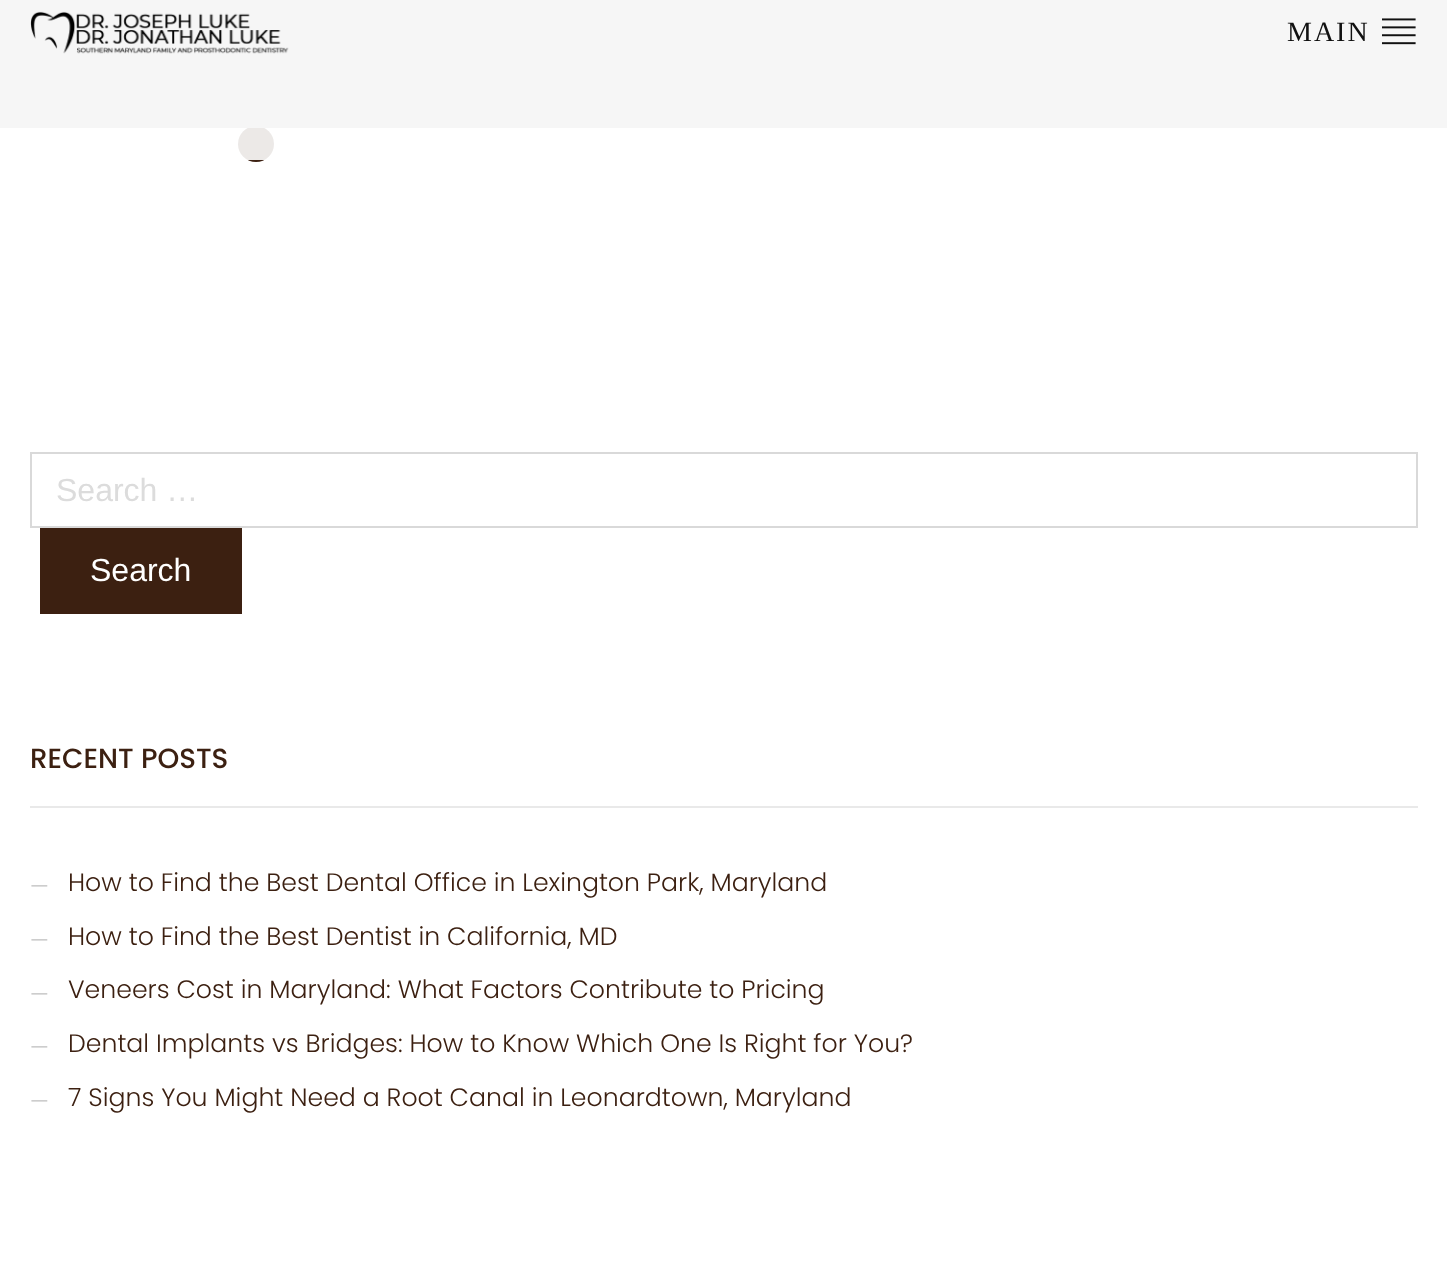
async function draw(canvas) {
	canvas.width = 1447;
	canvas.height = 1267;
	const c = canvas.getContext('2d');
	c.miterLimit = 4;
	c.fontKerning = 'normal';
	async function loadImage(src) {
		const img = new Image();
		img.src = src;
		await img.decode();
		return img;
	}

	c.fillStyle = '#fff';
	c.fillRect(0, 0, 1447, 1267);
	c.fillStyle = '#3c2011';
	c.beginPath();
	c.arc(256, 144, 18, 0, 2 * Math.PI);
	c.fill();
	for (const [x, y, w, h, color] of [
		[247, 126, 18, 2, '#fffffffa'],
		[238, 126, 36, 34, '#ffffffe6'],
		[0, 0, 1447, 128, '#1111110a'],
	]) {
		c.fillStyle = color;
		c.fillRect(x, y, w, h);
	}
	c.drawImage(await loadImage('img1.png'), 30, 11, 259, 43);
	c.letterSpacing = '2px';
	c.font = '28px Liberation Serif';
	c.fillStyle = '#111';
	c.fillText('MAIN', 1287, 41);
	c.drawImage(await loadImage('img2.png'), 1382, 18, 34, 27);
	c.strokeStyle = '#d9d9d9';
	c.lineWidth = 2;
	c.strokeRect(31, 453, 1386, 74);
	c.letterSpacing = '0px';
	c.font = '32px Liberation Sans';
	c.fillStyle = '#dcdcdc';
	c.fillText('Search …', 56, 501);
	c.fillStyle = '#3c2011';
	c.fillRect(40, 528, 202, 86);
	c.fillStyle = '#fff';
	c.fillText('Search', 90, 581);
	c.font = '500 27.75px Poppins';
	c.fillStyle = '#3c2011';
	c.fillText('RECENT POSTS', 30, 768);
	c.fillStyle = '#e9e9e9';
	c.fillRect(30, 806, 1388, 2);
	c.font = '300 22px Poppins';
	c.fillStyle = '#c2c2c2';
	c.fillText('—', 30, 894);
	c.font = '300 25.2px Poppins';
	c.fillStyle = '#3c2011';
	c.fillText('How to Find the Best Dental Office in Lexington Park, Maryland', 68, 891);
	c.font = '300 22px Poppins';
	c.fillStyle = '#c2c2c2';
	c.fillText('—', 30, 948);
	c.font = '300 25.2px Poppins';
	c.fillStyle = '#3c2011';
	c.fillText('How to Find the Best Dentist in California, MD', 68, 945);
	c.font = '300 22px Poppins';
	c.fillStyle = '#c2c2c2';
	c.fillText('—', 30, 1002);
	c.font = '300 25.2px Poppins';
	c.fillStyle = '#3c2011';
	c.fillText('Veneers Cost in Maryland: What Factors Contribute to Pricing', 68, 998);
	c.font = '300 22px Poppins';
	c.fillStyle = '#c2c2c2';
	c.fillText('—', 30, 1055);
	c.font = '300 25.2px Poppins';
	c.fillStyle = '#3c2011';
	c.fillText('Dental Implants vs Bridges: How to Know Which One Is Right for You?', 68, 1052);
	c.font = '300 22px Poppins';
	c.fillStyle = '#c2c2c2';
	c.fillText('—', 30, 1109);
	c.font = '300 25.2px Poppins';
	c.fillStyle = '#3c2011';
	c.fillText('7 Signs You Might Need a Root Canal in Leonardtown, Maryland', 68, 1106);
}

draw(document.querySelector('canvas'));
